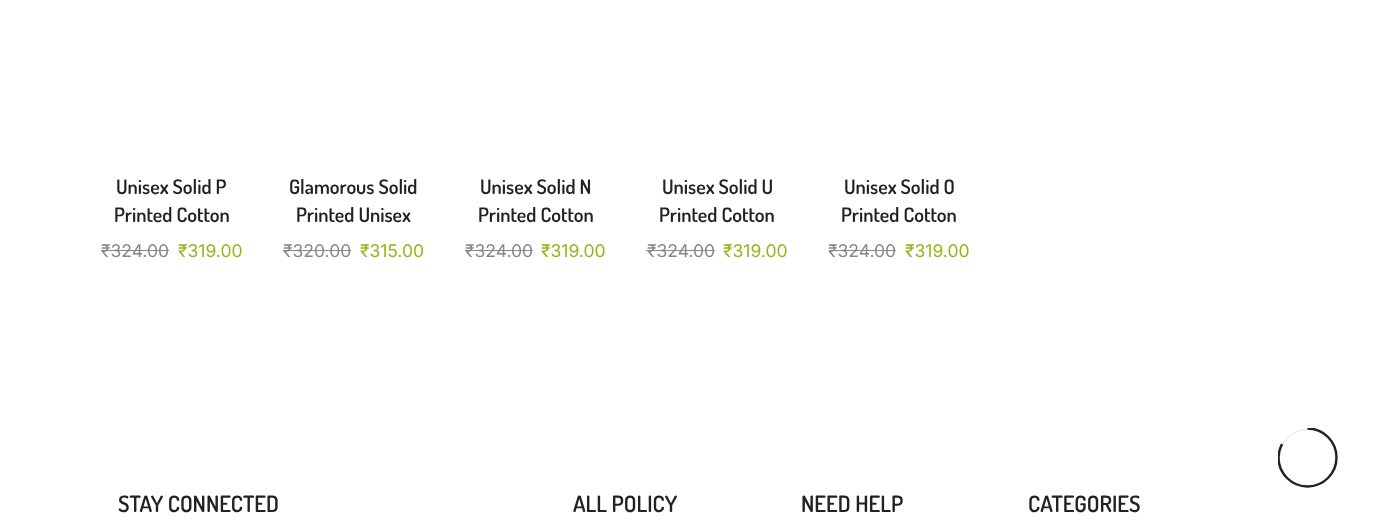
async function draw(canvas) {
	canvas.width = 1373;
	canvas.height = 523;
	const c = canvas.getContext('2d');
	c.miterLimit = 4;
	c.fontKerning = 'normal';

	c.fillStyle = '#fff';
	c.fillRect(0, 0, 1373, 523);
	c.font = '600 20px Dosis';
	c.fillStyle = '#222';
	c.fillText('Unisex Solid P', 116, 194);
	c.fillText('Printed Cotton', 114, 222);
	c.font = '17.5px Inter';
	c.fillStyle = '#888';
	c.fillText('₹324.00', 101, 257);
	c.fillRect(101, 250, 68, 1);
	c.fillStyle = '#96b416';
	c.fillText('₹319.00', 178, 257);
	c.font = '600 20px Dosis';
	c.fillStyle = '#222';
	c.fillText('Glamorous Solid', 289, 194);
	c.fillText('Printed Unisex', 296, 222);
	c.font = '17.5px Inter';
	c.fillStyle = '#888';
	c.fillText('₹320.00', 283, 257);
	c.fillRect(283, 250, 68, 1);
	c.fillStyle = '#96b416';
	c.fillText('₹315.00', 360, 257);
	c.font = '600 20px Dosis';
	c.fillStyle = '#222';
	c.fillText('Unisex Solid N', 480, 194);
	c.fillText('Printed Cotton', 478, 222);
	c.font = '17.5px Inter';
	c.fillStyle = '#888';
	c.fillText('₹324.00', 465, 257);
	c.fillRect(465, 250, 68, 1);
	c.fillStyle = '#96b416';
	c.fillText('₹319.00', 541, 257);
	c.font = '600 20px Dosis';
	c.fillStyle = '#222';
	c.fillText('Unisex Solid U', 662, 194);
	c.fillText('Printed Cotton', 659, 222);
	c.font = '17.5px Inter';
	c.fillStyle = '#888';
	c.fillText('₹324.00', 647, 257);
	c.fillRect(646, 250, 69, 1);
	c.fillStyle = '#96b416';
	c.fillText('₹319.00', 723, 257);
	c.font = '600 20px Dosis';
	c.fillStyle = '#222';
	c.fillText('Unisex Solid O', 844, 194);
	c.fillText('Printed Cotton', 841, 222);
	c.font = '17.5px Inter';
	c.fillStyle = '#888';
	c.fillText('₹324.00', 828, 257);
	c.fillRect(829, 250, 67, 1);
	c.fillStyle = '#96b416';
	c.fillText('₹319.00', 905, 257);
	c.font = '600 22.5px Dosis';
	c.fillStyle = '#222';
	for (const [text, x, y] of [
		['STAY CONNECTED', 118, 512],
		['ALL POLICY', 573, 512],
		['NEED HELP', 801, 512],
		['CATEGORIES', 1028, 512],
	]) {
		c.fillText(text, x, y);
	}
	c.beginPath();
	c.arc(1307.5, 457.5, 28, 0, 2 * Math.PI);
	c.strokeStyle = '#e1e1e1';
	c.stroke();
	c.save();
	c.beginPath();
	c.rect(1278, 428, 60, 60);
	c.clip();
	c.beginPath();
	c.moveTo(1307.5, 428.5);
	c.bezierCurveTo(1323.5, 428.5, 1336.5, 441.5, 1336.5, 457.5);
	c.bezierCurveTo(1336.5, 473.5, 1323.5, 486.5, 1307.5, 486.5);
	c.bezierCurveTo(1291.5, 486.5, 1278.5, 473.5, 1278.5, 457.5);
	c.bezierCurveTo(1278.5, 452.5, 1280, 448, 1282, 444);
	c.strokeStyle = '#222';
	c.lineWidth = 2.4;
	c.stroke();
	c.restore();
}

draw(document.querySelector('canvas'));
